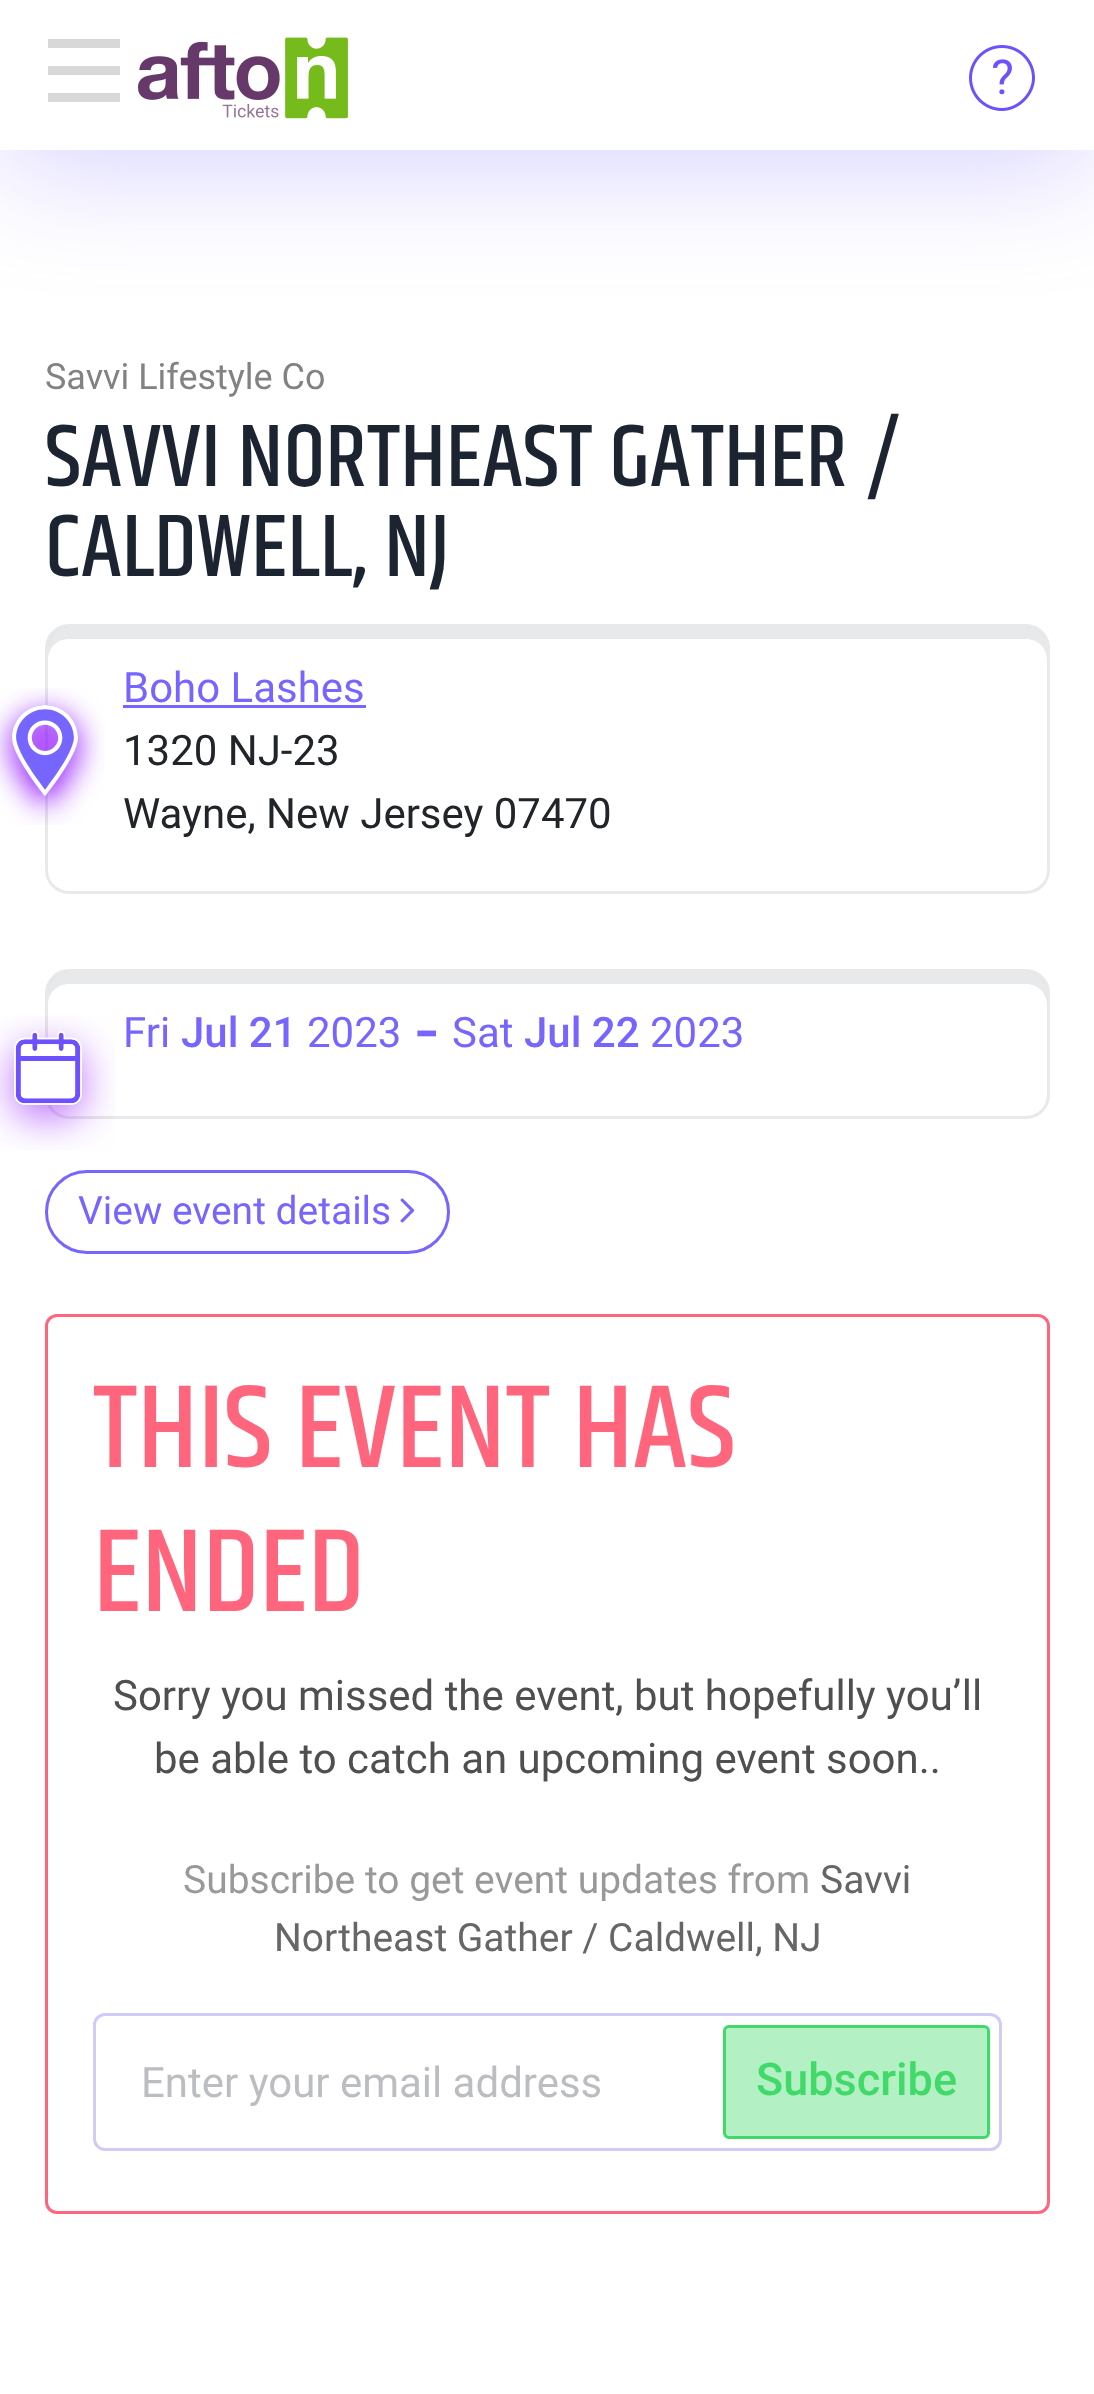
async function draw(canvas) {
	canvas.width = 1094;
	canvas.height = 2394;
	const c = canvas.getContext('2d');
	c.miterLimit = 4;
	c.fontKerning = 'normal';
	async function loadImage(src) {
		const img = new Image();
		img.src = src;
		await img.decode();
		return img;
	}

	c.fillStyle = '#fff';
	c.fillRect(0, 0, 1094, 2394);
	c.fillStyle = '#7666ff4f';
	c.filter = 'blur(60px)';
	c.beginPath();
	c.rect(0, 15, 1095, 150);
	c.fill();
	c.filter = 'none';
	for (const [x, y, w, h, color] of [
		[0, 0, 1094, 150, '#fff'],
		[48, 39, 72, 9, '#d8d8d8'],
		[48, 66, 72, 9, '#d8d8d8'],
		[48, 93, 72, 9, '#d8d8d8'],
	]) {
		c.fillStyle = color;
		c.fillRect(x, y, w, h);
	}
	c.drawImage(await loadImage('img1.png'), 138, 37, 210, 82);
	c.drawImage(await loadImage('img2.png'), 969, 45, 66, 66);
	c.font = '36px Roboto';
	c.fillStyle = '#828282';
	c.fillText('Savvi Lifestyle Co', 45, 389);
	c.font = '500 90px Khand';
	c.fillStyle = '#1c2331';
	c.fillText('SAVVI NORTHEAST GATHER /', 45, 486);
	c.fillText('CALDWELL, NJ', 45, 576);
	c.fillStyle = '#e8e9ea';
	c.beginPath();
	c.moveTo(69, 639);
	c.lineTo(1026, 639);
	c.bezierCurveTo(1038, 639, 1047, 648, 1047, 660);
	c.lineTo(1047, 648);
	c.bezierCurveTo(1047, 636, 1038, 627, 1026, 627);
	c.lineTo(69, 627);
	c.bezierCurveTo(57, 627, 48, 636, 48, 648);
	c.lineTo(48, 660);
	c.bezierCurveTo(48, 648, 57, 639, 69, 639);
	c.closePath();
	c.fill();
	c.beginPath();
	c.roundRect(46.5, 625.5, 1002, 267, 22.5);
	c.strokeStyle = '#1c23311a';
	c.lineWidth = 3;
	c.stroke();
	c.drawImage(await loadImage('img3.png'), 0, 688, 104, 137);
	c.font = '42px Roboto';
	c.fillStyle = '#7666ff';
	c.fillText('Boho Lashes', 123, 702);
	c.fillRect(123, 705, 243, 3);
	c.fillStyle = '#212529';
	c.fillText('1320 NJ-23', 123, 765);
	c.fillText('Wayne, New Jersey 07470', 123, 828);
	c.fillStyle = '#e8e9ea';
	c.beginPath();
	c.moveTo(69, 984);
	c.lineTo(1026, 984);
	c.bezierCurveTo(1038, 984, 1047, 993, 1047, 1005);
	c.lineTo(1047, 993);
	c.bezierCurveTo(1047, 981, 1038, 972, 1026, 972);
	c.lineTo(69, 972);
	c.bezierCurveTo(57, 972, 48, 981, 48, 993);
	c.lineTo(48, 1005);
	c.bezierCurveTo(48, 993, 57, 984, 69, 984);
	c.closePath();
	c.fill();
	c.beginPath();
	c.roundRect(46.5, 970.5, 1002, 147, 22.5);
	c.stroke();
	c.drawImage(await loadImage('img4.png'), 0, 1016, 115, 134);
	c.fillStyle = '#7666ff';
	c.fillText('Fri', 123, 1047);
	c.font = '500 42px Roboto';
	c.fillText('Jul 21', 181, 1047);
	c.font = '42px Roboto';
	c.fillText('2023', 307, 1047);
	c.font = '78px Roboto';
	c.fillText('-', 416, 1057);
	c.font = '42px Roboto';
	c.fillText('Sat', 452, 1047);
	c.font = '500 42px Roboto';
	c.fillText('Jul 22', 524, 1047);
	c.font = '42px Roboto';
	c.fillText('2023', 650, 1047);
	c.beginPath();
	c.roundRect(46.5, 1171.5, 402, 81, 40.5);
	c.strokeStyle = '#7666ff';
	c.stroke();
	c.font = '39px Roboto';
	c.fillText('View event details', 78, 1224);
	c.drawImage(await loadImage('img5.png'), 400, 1198, 15, 25);
	c.beginPath();
	c.roundRect(46.5, 1315.5, 1002, 897, 10.5);
	c.strokeStyle = '#ff667d';
	c.stroke();
	c.font = '500 120px Khand';
	c.fillStyle = '#ff667d';
	c.fillText('THIS EVENT HAS', 93, 1467);
	c.fillText('ENDED', 93, 1611);
	c.font = '42px Roboto';
	c.fillStyle = '#4f4f4f';
	c.fillText('Sorry you missed the event, but hopefully you’ll', 113, 1710);
	c.fillText('be able to catch an upcoming event soon..', 154, 1773);
	c.font = '39px Roboto';
	c.fillStyle = '#999';
	c.fillText('Subscribe to get event updates from', 183, 1893);
	c.fillStyle = '#666';
	c.fillText('Savvi', 820, 1893);
	c.fillText('Northeast Gather / Caldwell, NJ', 274, 1951);
	c.beginPath();
	c.roundRect(94.5, 2014.5, 906, 135, 10.5);
	c.strokeStyle = '#d0ccfa';
	c.stroke();
	c.font = '42px Roboto';
	c.fillStyle = '#bbbdc1';
	c.fillText('Enter your email address', 141, 2097);
	c.fillStyle = '#b3f0c3';
	c.beginPath();
	c.roundRect(724.5, 2026.5, 264, 111, 4.5);
	c.fill();
	c.strokeStyle = '#41d96a';
	c.stroke();
	c.font = '500 45px Roboto';
	c.fillStyle = '#41d96a';
	c.fillText('Subscribe', 756, 2095);
}

draw(document.querySelector('canvas'));
